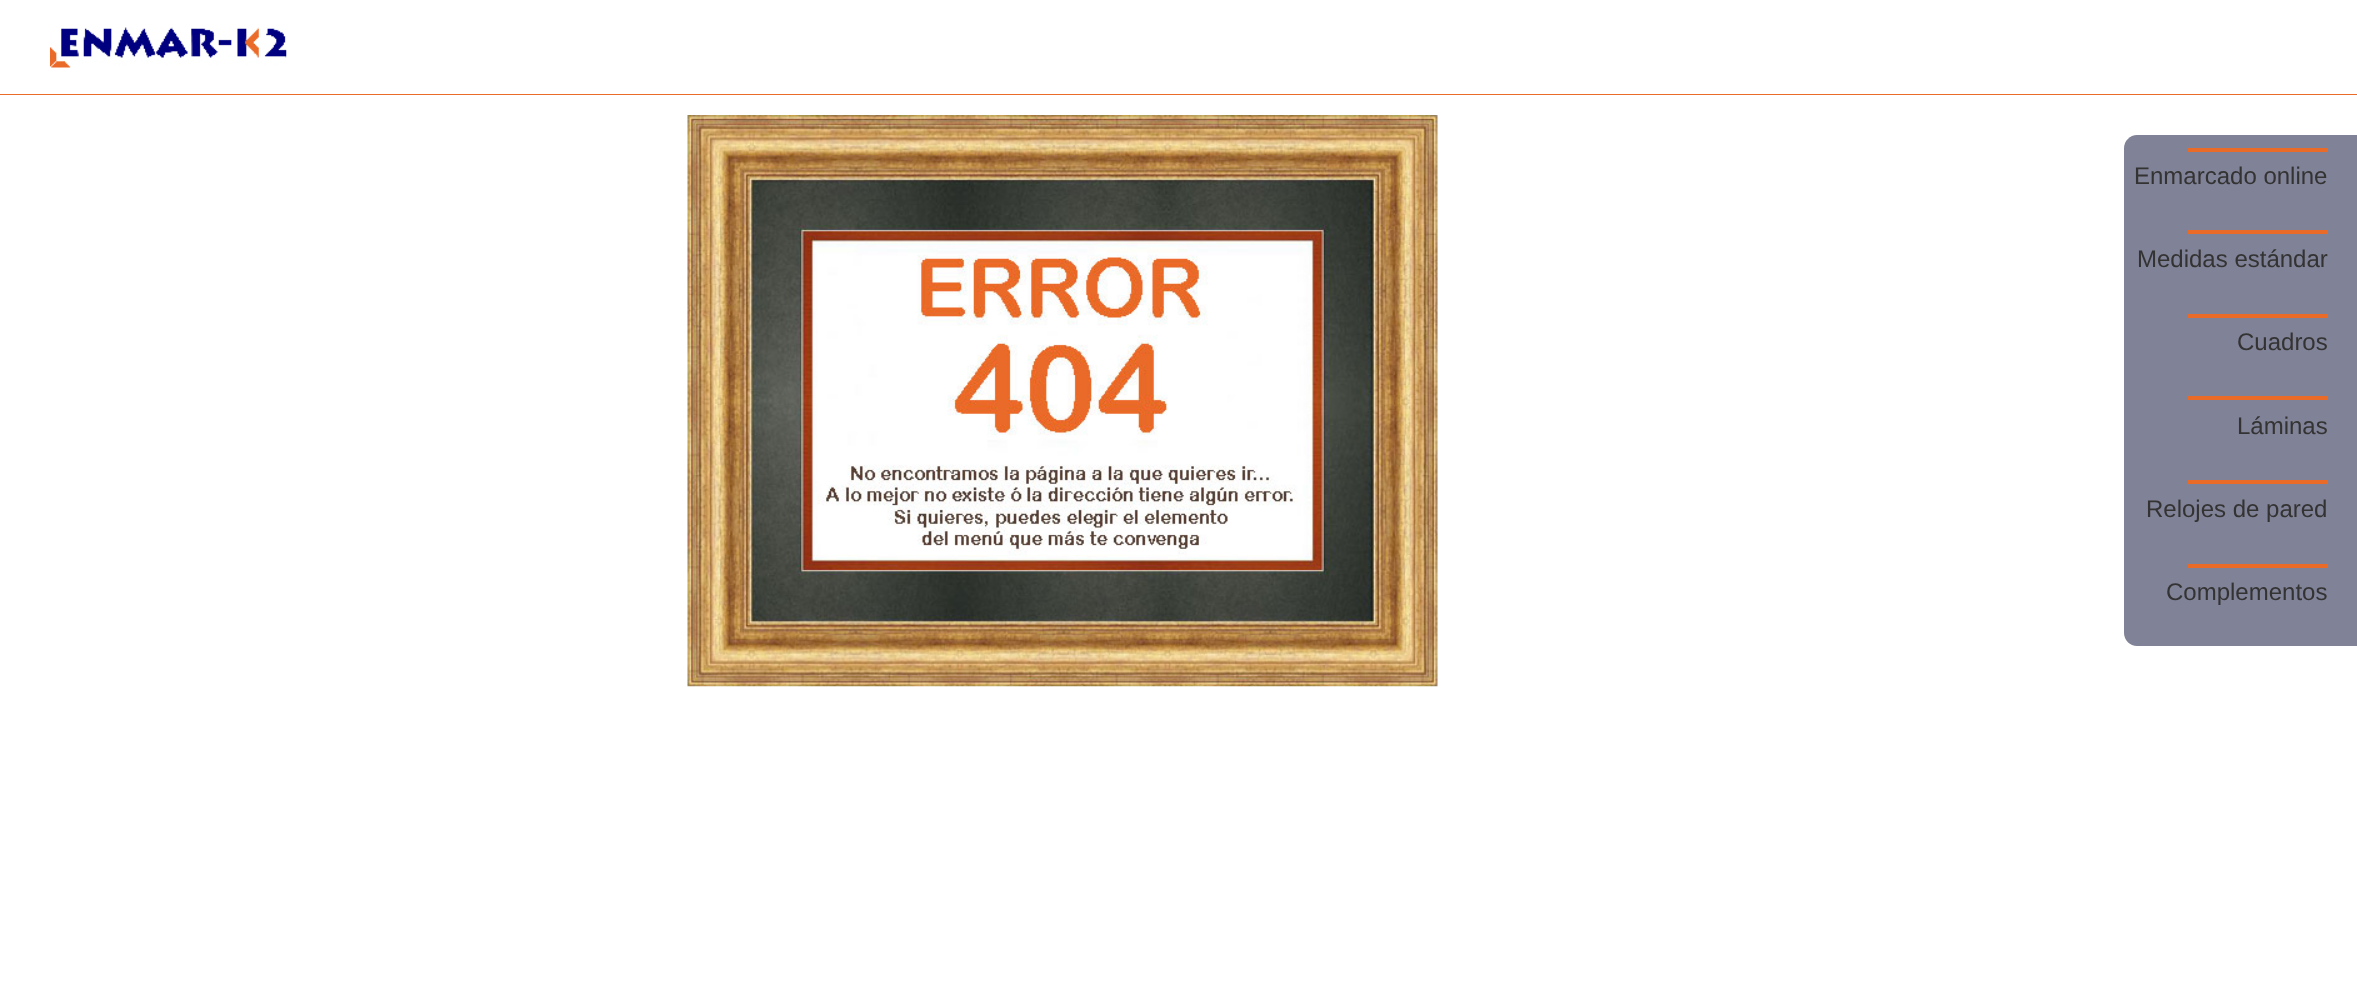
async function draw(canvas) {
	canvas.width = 2357;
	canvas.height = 992;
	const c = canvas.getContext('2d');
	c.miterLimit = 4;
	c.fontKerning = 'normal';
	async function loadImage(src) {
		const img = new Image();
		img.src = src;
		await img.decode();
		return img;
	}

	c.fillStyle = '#fff';
	c.fillRect(0, 0, 2357, 992);
	c.fillStyle = '#ea6a28';
	c.fillRect(0, 94, 2357, 1);
	c.drawImage(await loadImage('img1.png'), 50, 27, 237, 41);
	c.drawImage(await loadImage('img2.png'), 687, 115, 751, 572);
	c.fillStyle = '#808297';
	c.beginPath();
	c.moveTo(2137, 135);
	c.lineTo(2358, 135);
	c.lineTo(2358, 646);
	c.lineTo(2137, 646);
	c.bezierCurveTo(2130, 646, 2124, 640, 2124, 633);
	c.lineTo(2124, 148);
	c.bezierCurveTo(2124, 141, 2130, 135, 2137, 135);
	c.closePath();
	c.fill();
	c.fillStyle = '#ea6a28';
	c.fillRect(2188, 148, 140, 4);
	c.font = '24px Liberation Sans';
	c.fillStyle = '#333';
	c.fillText('Enmarcado online', 2134, 184);
	c.fillStyle = '#ea6a28';
	c.fillRect(2188, 230, 140, 4);
	c.fillStyle = '#333';
	c.fillText('Medidas estándar', 2137, 267);
	c.fillStyle = '#ea6a28';
	c.fillRect(2188, 314, 140, 4);
	c.fillStyle = '#333';
	c.fillText('Cuadros', 2237, 350);
	c.fillStyle = '#ea6a28';
	c.fillRect(2188, 396, 140, 4);
	c.fillStyle = '#333';
	c.fillText('Láminas', 2237, 434);
	c.fillStyle = '#ea6a28';
	c.fillRect(2188, 480, 140, 4);
	c.fillStyle = '#333';
	c.fillText('Relojes de pared', 2146, 517);
	c.fillStyle = '#ea6a28';
	c.fillRect(2188, 564, 140, 4);
	c.fillStyle = '#333';
	c.fillText('Complementos', 2166, 600);
}

draw(document.querySelector('canvas'));
